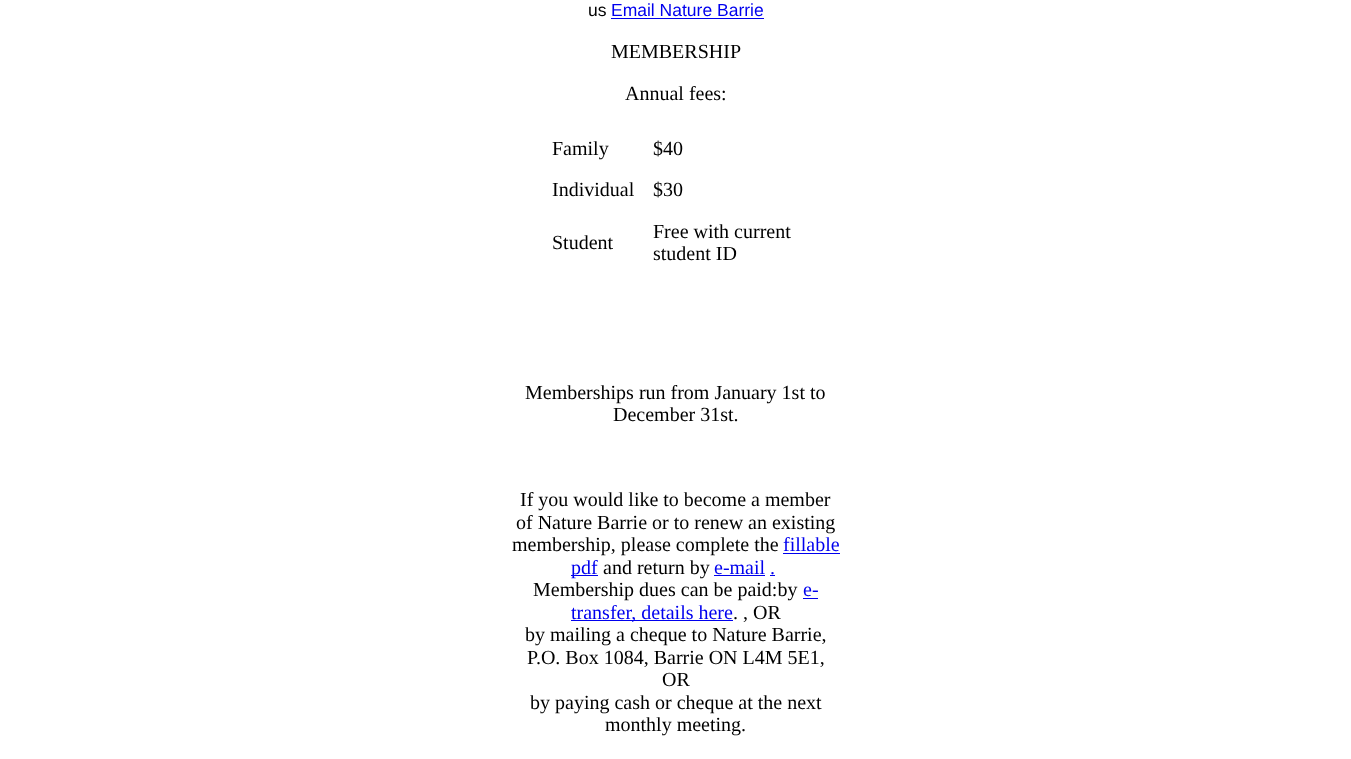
async function draw(canvas) {
	canvas.width = 1351;
	canvas.height = 759;
	const c = canvas.getContext('2d');
	c.miterLimit = 4;
	c.fontKerning = 'normal';

	c.fillStyle = '#fff';
	c.fillRect(0, 0, 1351, 759);
	c.font = '17.5px Liberation Sans';
	c.fillStyle = '#000';
	c.fillText('us', 588, 16);
	c.fillStyle = '#00e';
	c.fillText('Email Nature Barrie', 611, 16);
	c.fillRect(611, 18, 153, 1);
	c.font = '20px Liberation Serif';
	c.fillStyle = '#000';
	for (const [text, x, y] of [
		['MEMBERSHIP', 611, 58],
		['Annual fees:', 625, 100],
		['Family', 552, 155],
		['$40', 653, 155],
		['Individual', 552, 196],
		['$30', 653, 196],
		['Student', 552, 249],
		['Free with current', 653, 238],
		['student ID', 653, 260],
		['Memberships run from January 1st to', 525, 399],
		['December 31st.', 613, 421],
		['If you would like to become a member', 520, 506],
		['of Nature Barrie or to renew an existing', 516, 529],
		['membership, please complete the', 512, 551],
	]) {
		c.fillText(text, x, y);
	}
	c.fillStyle = '#00e';
	c.fillText('fillable', 783, 551);
	c.fillRect(783, 553, 57, 1);
	c.fillRect(571, 575, 27, 1);
	c.fillText('pdf', 571, 574);
	c.fillStyle = '#000';
	c.fillText('and return by', 603, 574);
	c.fillStyle = '#00e';
	c.fillText('e-mail .', 714, 574);
	c.fillRect(714, 575, 51, 1);
	c.fillRect(770, 575, 5, 1);
	c.fillStyle = '#000';
	c.fillText('Membership dues can be paid:by', 533, 596);
	c.fillStyle = '#00e';
	c.fillText('e-', 803, 596);
	c.fillRect(803, 598, 15, 1);
	c.fillRect(571, 620, 162, 1);
	c.fillText('transfer, details here', 571, 619);
	c.fillStyle = '#000';
	for (const [text, x, y] of [
		['. , OR', 733, 619],
		['by mailing a cheque to Nature Barrie,', 525, 641],
		['P.O. Box 1084, Barrie ON L4M 5E1,', 527, 664],
		['OR', 662, 686],
		['by paying cash or cheque at the next', 530, 709],
		['monthly meeting.', 605, 731],
	]) {
		c.fillText(text, x, y);
	}
}

draw(document.querySelector('canvas'));
